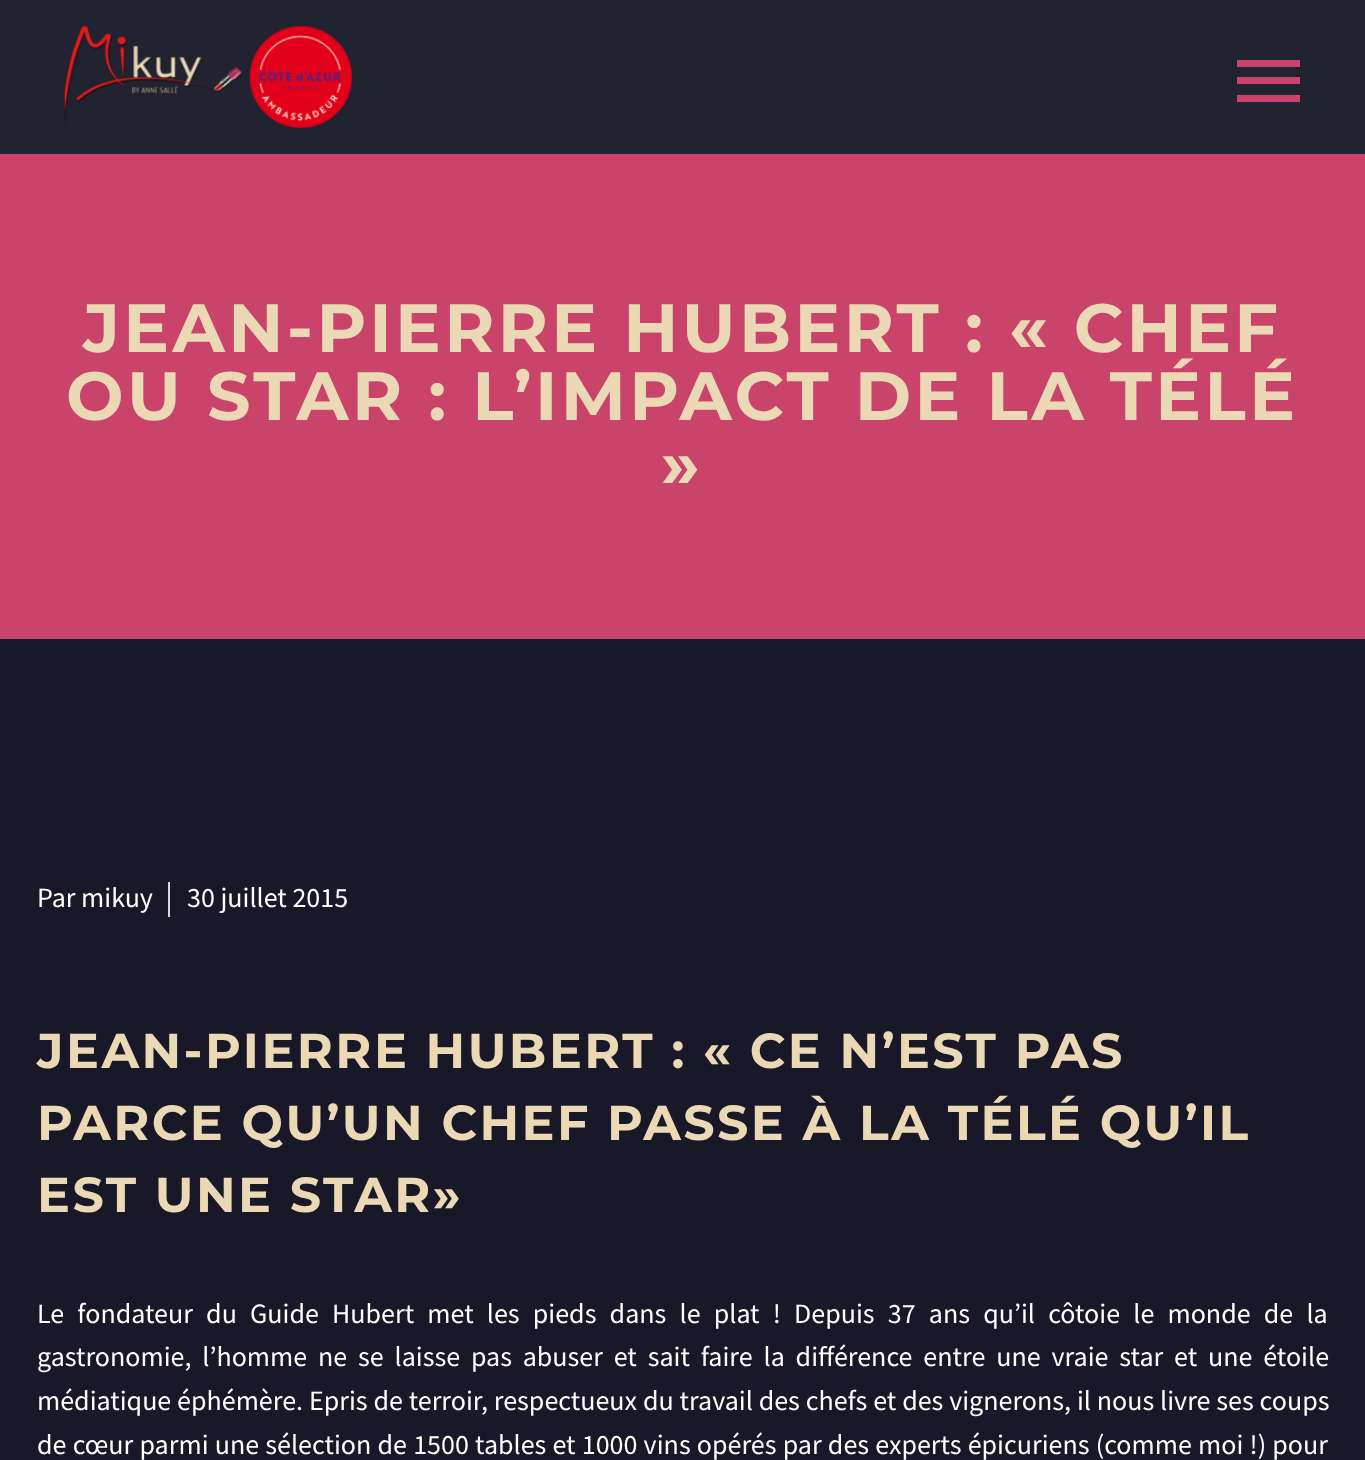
async function draw(canvas) {
	canvas.width = 1365;
	canvas.height = 1460;
	const c = canvas.getContext('2d');
	c.miterLimit = 4;
	c.fontKerning = 'normal';
	async function loadImage(src) {
		const img = new Image();
		img.src = src;
		await img.decode();
		return img;
	}

	c.fillStyle = '#212331';
	c.fillRect(0, 0, 1365, 1460);
	c.drawImage(await loadImage('img1.png'), 64, 26, 288, 102);
	for (const [x, y, w, h, color] of [
		[1237, 60, 63, 7, '#ca436b'],
		[1237, 77, 63, 7, '#ca436b'],
		[1237, 95, 63, 7, '#ca436b'],
		[0, 154, 1365, 485, '#ca436b'],
	]) {
		c.fillStyle = color;
		c.fillRect(x, y, w, h);
	}
	c.letterSpacing = '3.4px';
	c.font = 'bold 68.25px Montserrat';
	c.fillStyle = '#ebd8b5';
	for (const [text, x, y] of [
		['JEAN-PIERRE HUBERT : « CHEF', 83, 352],
		['OU STAR : L’IMPACT DE LA TÉLÉ', 66, 420],
		['»', 661, 488],
	]) {
		c.fillText(text, x, y);
	}
	c.fillStyle = '#181828';
	c.fillRect(0, 639, 1365, 821);
	c.letterSpacing = '0px';
	c.font = '28px Source Sans Pro';
	c.fillStyle = '#fff';
	c.fillText('Par mikuy', 37, 907);
	c.fillStyle = '#d4dee1';
	c.fillRect(168, 882, 2, 35);
	c.fillStyle = '#fff';
	c.fillText('30 juillet 2015', 187, 907);
	c.letterSpacing = '2.45px';
	c.font = 'bold 49.1px Montserrat';
	c.fillStyle = '#ebd8b5';
	for (const [text, x, y] of [
		['JEAN-PIERRE HUBERT : « CE N’EST PAS', 37, 1068],
		['PARCE QU’UN CHEF PASSE À LA TÉLÉ QU’IL', 37, 1140],
		['EST UNE STAR»', 37, 1212],
	]) {
		c.fillText(text, x, y);
	}
	c.letterSpacing = '0px';
	c.wordSpacing = '7.6px';
	c.font = '28px Source Sans Pro';
	c.fillStyle = '#fff';
	c.fillText('Le fondateur du Guide Hubert met les pieds dans le plat ! Depuis 37 ans qu’il côtoie le monde de la', 37, 1323);
	c.wordSpacing = '5.25px';
	c.fillText('gastronomie, l’homme ne se laisse pas abuser et sait faire la différence entre une vraie star et une étoile', 37, 1366);
	c.wordSpacing = '0.25px';
	c.fillText('médiatique éphémère. Epris de terroir, respectueux du travail des chefs et des vignerons, il nous livre ses coups', 37, 1410);
	c.wordSpacing = '0.6px';
	c.fillText('de cœur parmi une sélection de 1500 tables et 1000 vins opérés par des experts épicuriens (comme moi !) pour', 37, 1454);
}

draw(document.querySelector('canvas'));
